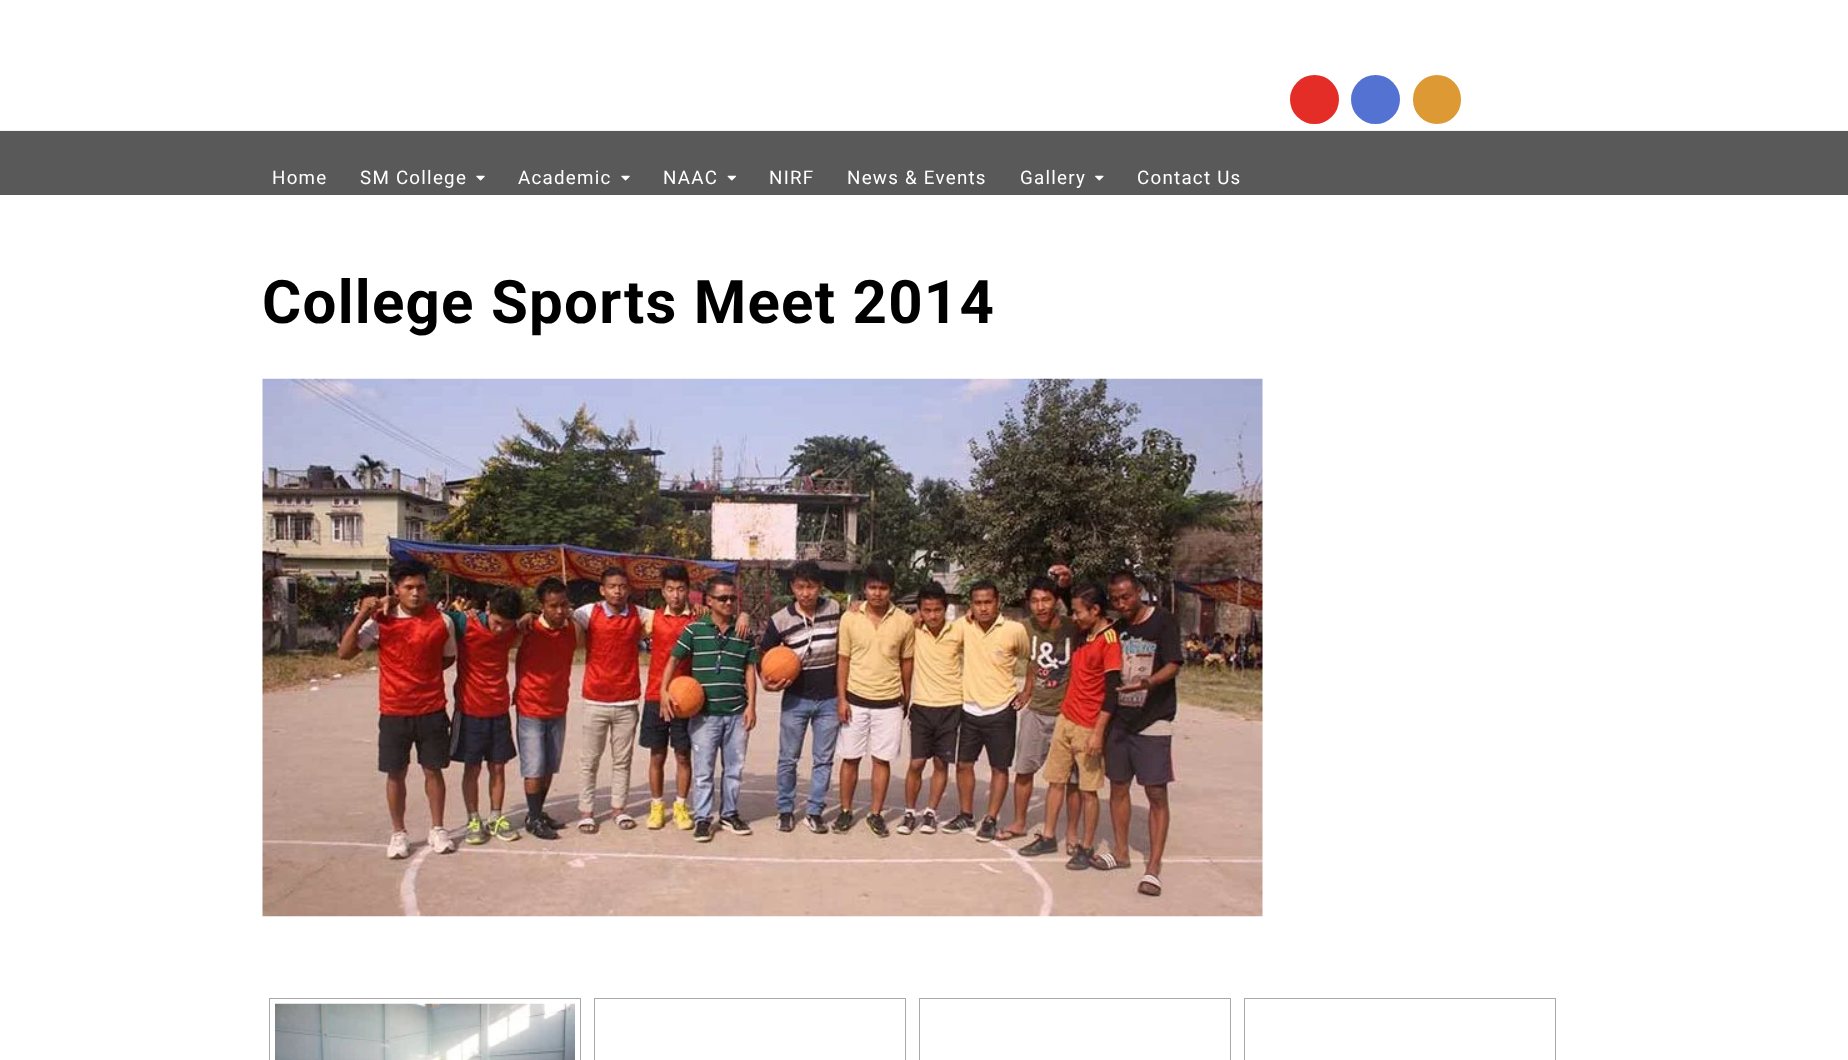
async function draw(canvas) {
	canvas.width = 1848;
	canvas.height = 1060;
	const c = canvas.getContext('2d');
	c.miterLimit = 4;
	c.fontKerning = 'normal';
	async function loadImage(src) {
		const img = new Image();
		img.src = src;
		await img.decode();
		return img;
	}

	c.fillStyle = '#fff';
	c.fillRect(0, 0, 1848, 1060);
	c.fillStyle = '#f2f2f2';
	c.fillRect(0, 130, 1848, 1);
	c.fillStyle = '#e52d27';
	c.beginPath();
	c.arc(1314.5, 99.5, 24.5, 0, 2 * Math.PI);
	c.fill();
	c.fillStyle = '#5472d2';
	c.beginPath();
	c.arc(1375.5, 99.5, 24.5, 0, 2 * Math.PI);
	c.fill();
	c.fillStyle = '#d93';
	c.beginPath();
	c.roundRect(1413, 75, 48, 49, 24);
	c.fill();
	c.fillStyle = '#595959';
	c.fillRect(0, 131, 1848, 64);
	c.letterSpacing = '1.25px';
	c.font = '18.75px Roboto';
	c.fillStyle = '#fff';
	c.fillText('Home', 272, 184);
	c.fillText('SM College', 360, 184);
	c.drawImage(await loadImage('img1.png'), 476, 175, 9, 6);
	c.fillText('Academic', 518, 184);
	c.drawImage(await loadImage('img1.png'), 621, 175, 9, 6);
	c.fillText('NAAC', 663, 184);
	c.drawImage(await loadImage('img2.png'), 727, 175, 9, 6);
	for (const [text, x, y] of [
		['NIRF', 769, 184],
		['News & Events', 847, 184],
		['Gallery', 1020, 184],
	]) {
		c.fillText(text, x, y);
	}
	c.drawImage(await loadImage('img3.png'), 1095, 175, 9, 6);
	c.fillText('Contact Us', 1137, 184);
	c.font = 'bold 60px Roboto';
	c.fillStyle = '#000';
	c.fillText('College Sports Meet 2014', 262, 323);
	c.drawImage(await loadImage('img4.png'), 262, 378, 1001, 539);
	c.strokeStyle = '#a9a9a9';
	c.strokeRect(269.5, 998.5, 311, 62);
	c.drawImage(await loadImage('img5.png'), 275, 1003, 300, 57);
	c.strokeRect(594.5, 998.5, 311, 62);
	c.strokeRect(919.5, 998.5, 311, 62);
	c.strokeRect(1244.5, 998.5, 311, 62);
}

draw(document.querySelector('canvas'));
